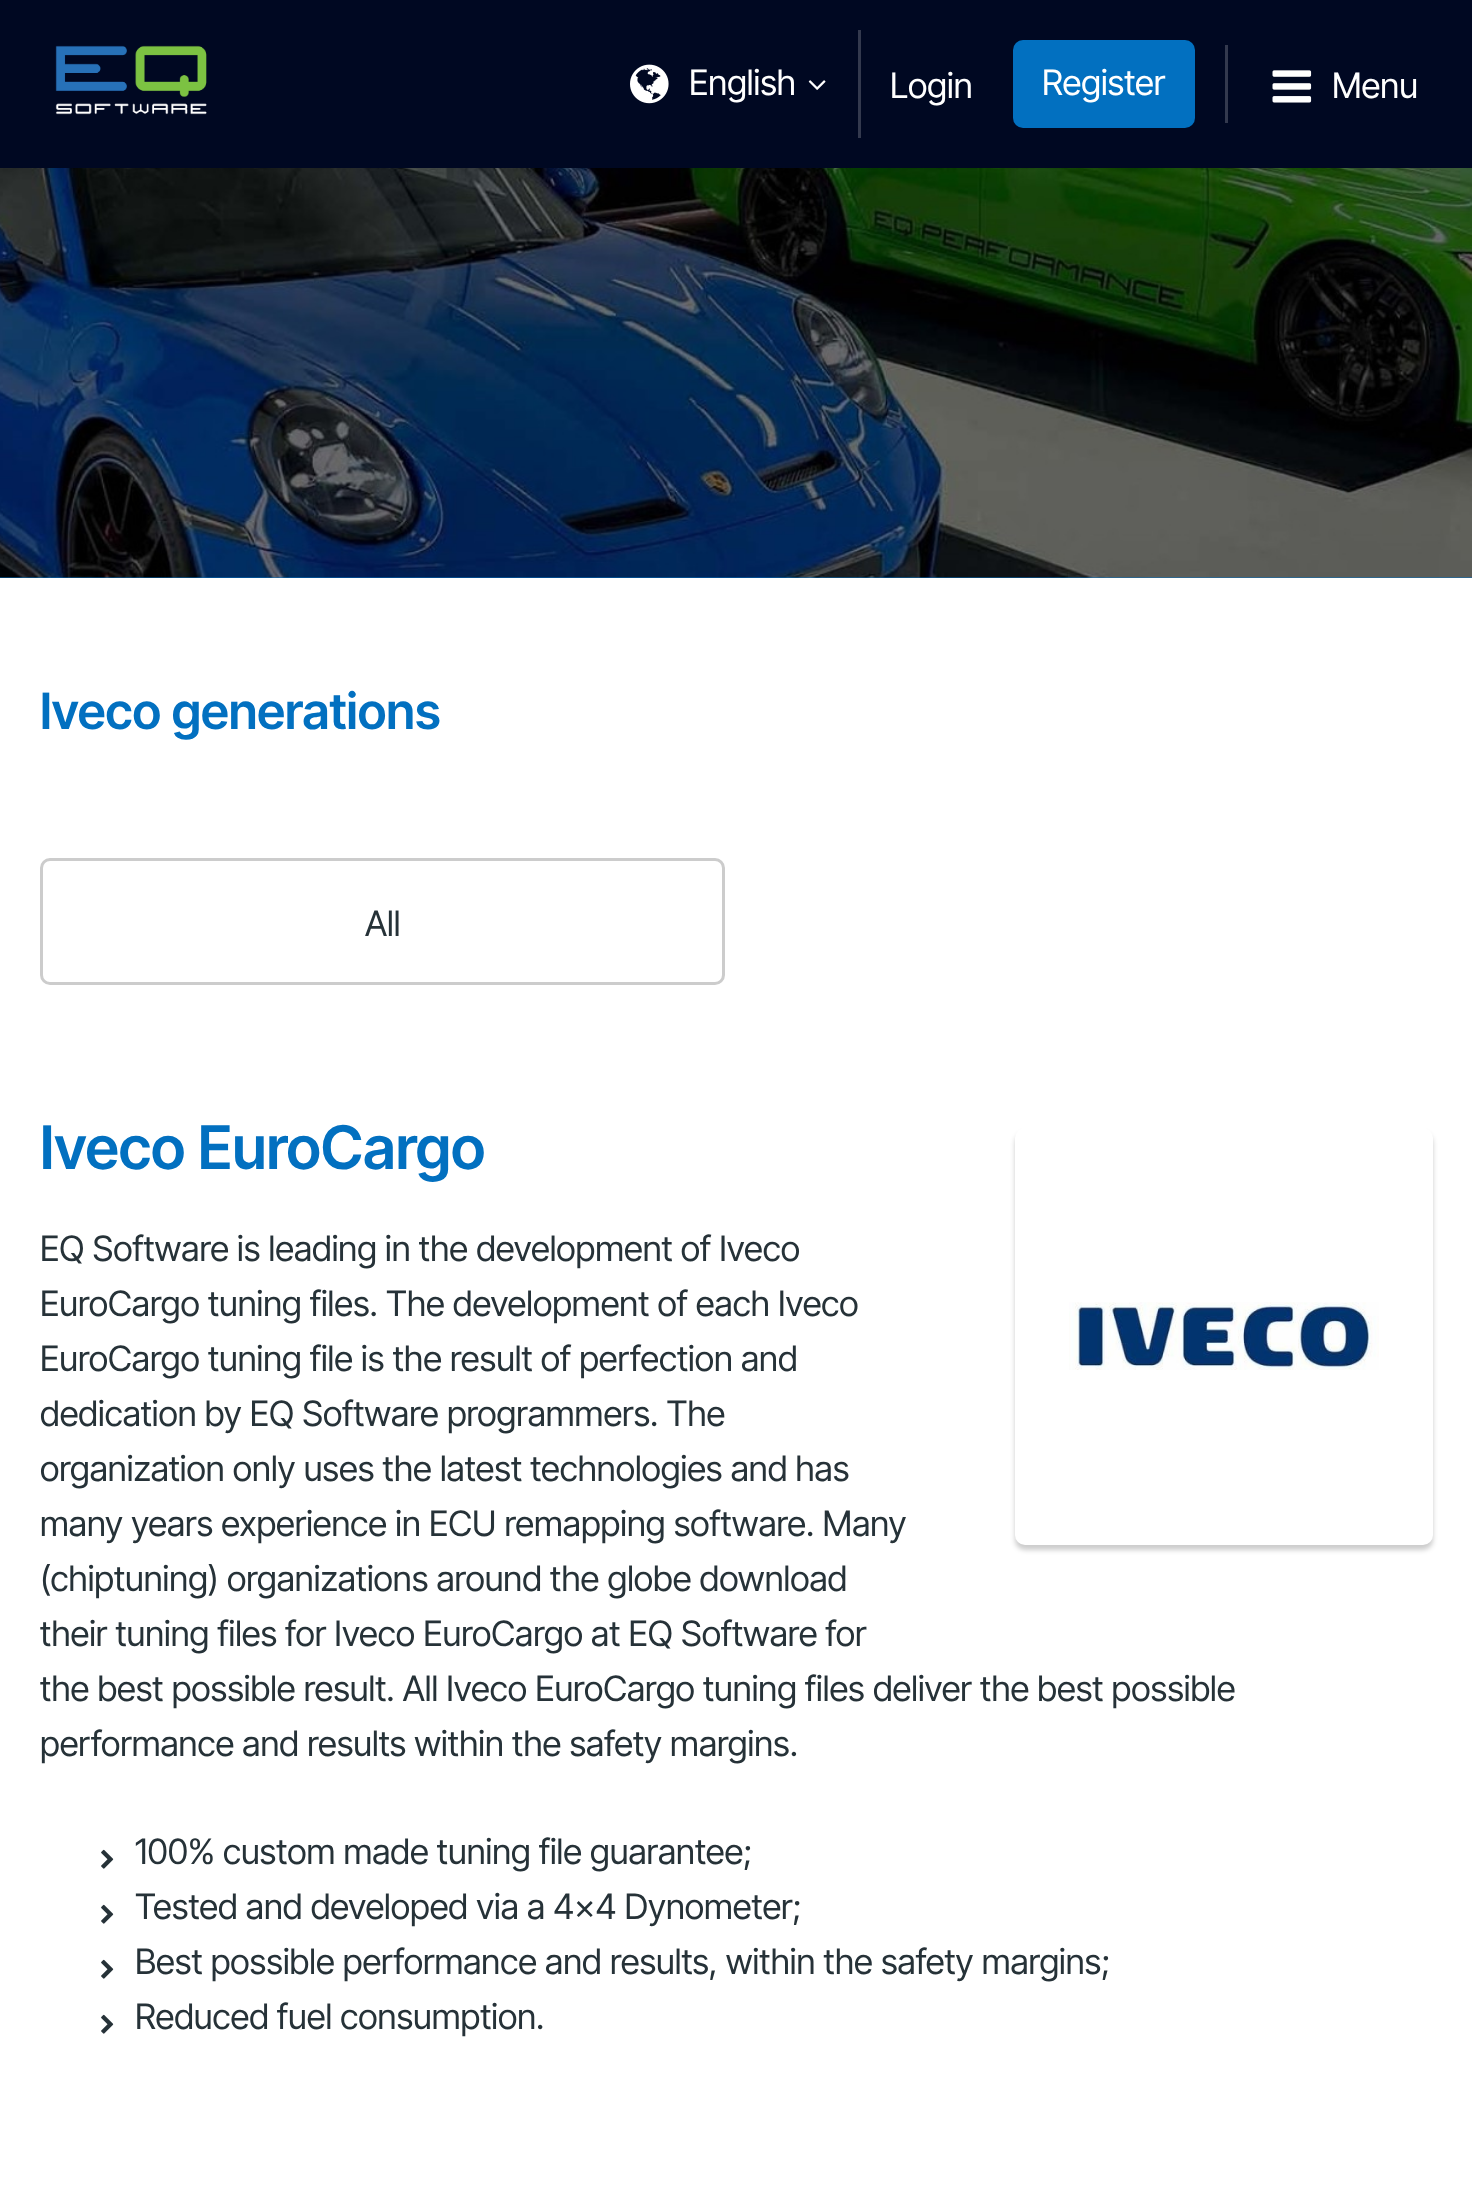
async function draw(canvas) {
	canvas.width = 1472;
	canvas.height = 2201;
	const c = canvas.getContext('2d');
	c.miterLimit = 4;
	c.fontKerning = 'normal';
	async function loadImage(src) {
		const img = new Image();
		img.src = src;
		await img.decode();
		return img;
	}

	c.fillStyle = '#0270c0';
	c.fillRect(0, 0, 1472, 2201);
	c.fillStyle = '#000822';
	c.fillRect(0, 0, 1472, 168);
	c.drawImage(await loadImage('img1.png'), 55, 45, 152, 70);
	c.drawImage(await loadImage('img2.png'), 630, 64, 39, 40);
	c.font = '35px Inter Tight';
	c.fillStyle = '#fff';
	c.fillText('English', 689, 95);
	c.drawImage(await loadImage('img3.png'), 808, 80, 18, 10);
	c.fillStyle = '#33394e';
	c.fillRect(858, 30, 3, 108);
	c.fillStyle = '#fff';
	c.fillText('Login', 890, 98);
	c.fillStyle = '#0270c0';
	c.beginPath();
	c.roundRect(1013, 40, 182, 88, 10);
	c.fill();
	c.fillStyle = '#fff';
	c.fillText('Register', 1042, 95);
	c.fillStyle = '#33394e';
	c.fillRect(1225, 45, 3, 78);
	c.drawImage(await loadImage('img4.png'), 1272, 70, 40, 33);
	c.fillStyle = '#fff';
	c.fillText('Menu', 1332, 98);
	c.drawImage(await loadImage('img5.png'), 0, 168, 1472, 410);
	c.fillRect(0, 578, 1472, 1623);
	c.font = '600 50px Inter Tight';
	c.fillStyle = '#0270c0';
	c.fillText('Iveco generations', 40, 729);
	c.beginPath();
	c.roundRect(41.5, 859.5, 682, 124, 8.5);
	c.strokeStyle = '#ccc';
	c.lineWidth = 3;
	c.stroke();
	c.font = '35px Inter Tight';
	c.fillStyle = '#263238';
	c.fillText('All', 365, 936);
	c.font = '600 60px Inter Tight';
	c.fillStyle = '#0270c0';
	c.fillText('Iveco EuroCargo', 40, 1169);
	c.font = '35px Inter Tight';
	c.fillStyle = '#263238';
	for (const [text, x, y] of [
		['EQ Software is leading in the development of Iveco', 40, 1261],
		['EuroCargo tuning files. The development of each Iveco', 40, 1316],
		['EuroCargo tuning file is the result of perfection and', 40, 1371],
		['dedication by EQ Software programmers. The', 40, 1426],
		['organization only uses the latest technologies and has', 40, 1481],
		['many years experience in ECU remapping software. Many', 40, 1536],
		['(chiptuning) organizations around the globe download', 40, 1591],
		['their tuning files for Iveco EuroCargo at EQ Software for', 40, 1646],
		['the best possible result. All Iveco EuroCargo tuning files deliver the best possible', 40, 1701],
		['performance and results within the safety margins.', 40, 1756],
	]) {
		c.fillText(text, x, y);
	}
	c.drawImage(await loadImage('img6.png'), 101, 1849, 13, 20);
	c.fillText('100% custom made tuning file guarantee;', 135, 1864);
	c.drawImage(await loadImage('img6.png'), 101, 1904, 13, 20);
	c.fillText('Tested and developed via a 4x4 Dynometer;', 135, 1919);
	c.drawImage(await loadImage('img6.png'), 101, 1959, 13, 20);
	c.fillText('Best possible performance and results, within the safety margins;', 135, 1974);
	c.drawImage(await loadImage('img6.png'), 101, 2014, 13, 20);
	c.fillText('Reduced fuel consumption.', 135, 2029);
	c.fillStyle = '#00000033';
	c.filter = 'blur(2.5px)';
	c.beginPath();
	c.roundRect(1015, 1133, 418, 417, 10);
	c.fill();
	c.filter = 'none';
	c.fillStyle = '#fff';
	c.beginPath();
	c.roundRect(1015, 1128, 418, 417, 10);
	c.fill();
	c.drawImage(await loadImage('img7.png'), 1069, 1302, 310, 68);
}

draw(document.querySelector('canvas'));
